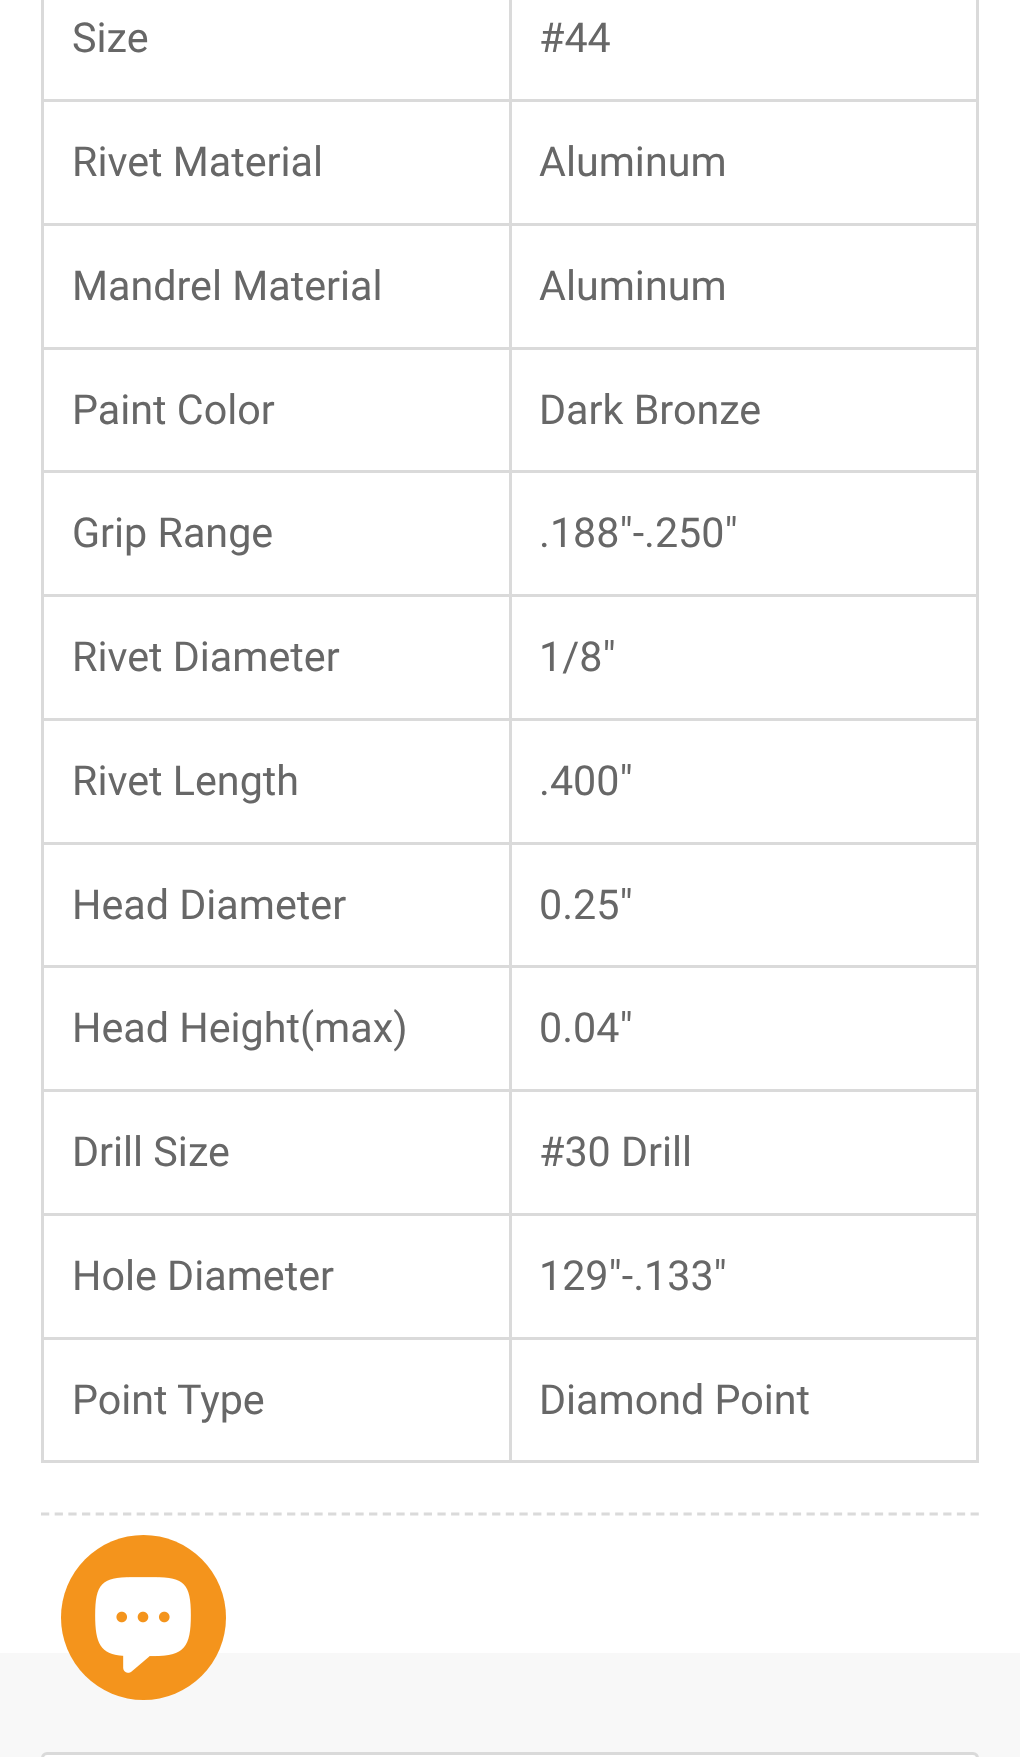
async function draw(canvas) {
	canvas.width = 1020;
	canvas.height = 1757;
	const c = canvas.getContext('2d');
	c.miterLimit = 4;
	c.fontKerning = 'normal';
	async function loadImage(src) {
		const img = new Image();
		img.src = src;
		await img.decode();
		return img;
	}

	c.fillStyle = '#fff';
	c.fillRect(0, 0, 1020, 1757);
	c.beginPath();
	c.moveTo(41, 1514);
	c.lineTo(979, 1514);
	c.strokeStyle = '#dadada';
	c.lineWidth = 2.8;
	c.setLineDash([8.25, 5.42]);
	c.stroke();
	c.font = '41.25px Roboto';
	c.fillStyle = '#676767';
	c.fillText('Size', 72, 52);
	for (const [x, y, w, h, color] of [
		[509, 99, 470, 3, '#dadada'],
		[509, 223, 470, 3, '#dadada'],
		[509, 347, 470, 3, '#dadada'],
		[509, 470, 470, 3, '#dadada'],
		[509, 594, 470, 3, '#dadada'],
		[509, 718, 470, 3, '#dadada'],
		[509, 842, 470, 3, '#dadada'],
		[509, 965, 470, 3, '#dadada'],
		[509, 1089, 470, 3, '#dadada'],
		[509, 1213, 470, 3, '#dadada'],
		[509, 1337, 470, 3, '#dadada'],
		[976, 1337, 3, 126, '#dadada'],
		[509, 1460, 470, 3, '#dadada'],
		[509, 1337, 3, 126, '#dadada'],
		[41, 1337, 471, 3, '#dadada'],
		[509, 1213, 3, 126, '#dadada'],
		[41, 1213, 471, 3, '#dadada'],
		[509, 1089, 3, 127, '#dadada'],
		[41, 1089, 471, 3, '#dadada'],
		[509, 965, 3, 127, '#dadada'],
		[41, 965, 471, 3, '#dadada'],
		[509, 842, 3, 126, '#dadada'],
		[41, 842, 471, 3, '#dadada'],
		[509, 718, 3, 126, '#dadada'],
		[41, 718, 471, 3, '#dadada'],
		[509, 594, 3, 127, '#dadada'],
		[41, 594, 471, 3, '#dadada'],
		[509, 470, 3, 127, '#dadada'],
		[41, 470, 471, 3, '#dadada'],
		[509, 347, 3, 126, '#dadada'],
		[41, 347, 471, 3, '#dadada'],
		[509, 223, 3, 126, '#dadada'],
		[41, 223, 471, 3, '#dadada'],
		[509, 99, 3, 127, '#dadada'],
		[41, 99, 471, 3, '#dadada'],
		[509, 0, 3, 102, '#dadada'],
	]) {
		c.fillStyle = color;
		c.fillRect(x, y, w, h);
	}
	c.fillStyle = '#676767';
	c.fillText('#44', 539, 52);
	for (const [x, y, w, h, color] of [
		[41, 1460, 471, 3, '#dadada'],
		[41, 1337, 3, 126, '#dadada'],
		[41, 1213, 3, 126, '#dadada'],
		[41, 1089, 3, 127, '#dadada'],
		[41, 965, 3, 127, '#dadada'],
		[41, 842, 3, 126, '#dadada'],
		[41, 718, 3, 126, '#dadada'],
		[41, 594, 3, 127, '#dadada'],
		[41, 470, 3, 127, '#dadada'],
		[41, 347, 3, 126, '#dadada'],
		[41, 223, 3, 126, '#dadada'],
		[41, 0, 3, 226, '#dadada'],
	]) {
		c.fillStyle = color;
		c.fillRect(x, y, w, h);
	}
	c.fillStyle = '#676767';
	c.fillText('Rivet Material', 72, 176);
	for (const [x, y, w, h, color] of [
		[976, 1213, 3, 126, '#dadada'],
		[976, 1089, 3, 127, '#dadada'],
		[976, 965, 3, 127, '#dadada'],
		[976, 842, 3, 126, '#dadada'],
		[976, 718, 3, 126, '#dadada'],
		[976, 594, 3, 127, '#dadada'],
		[976, 470, 3, 127, '#dadada'],
		[976, 347, 3, 126, '#dadada'],
		[976, 223, 3, 126, '#dadada'],
		[976, 0, 3, 226, '#dadada'],
	]) {
		c.fillStyle = color;
		c.fillRect(x, y, w, h);
	}
	c.fillStyle = '#676767';
	for (const [text, x, y] of [
		['Aluminum', 539, 176],
		['Mandrel Material', 72, 300],
		['Aluminum', 539, 300],
		['Paint Color', 72, 424],
		['Dark Bronze', 539, 424],
		['Grip Range', 72, 547],
		['.188"-.250"', 539, 547],
		['Rivet Diameter', 72, 671],
		['1/8"', 539, 671],
		['Rivet Length', 72, 795],
		['.400"', 539, 795],
		['Head Diameter', 72, 919],
		['0.25"', 539, 919],
		['Head Height(max)', 72, 1042],
		['0.04"', 539, 1042],
		['Drill Size', 72, 1166],
		['#30 Drill', 539, 1166],
		['Hole Diameter', 72, 1290],
		['129"-.133"', 539, 1290],
		['Point Type', 72, 1414],
		['Diamond Point', 539, 1414],
	]) {
		c.fillText(text, x, y);
	}
	c.fillStyle = '#f8f8f8';
	c.fillRect(0, 1653, 1020, 104);
	c.fillStyle = '#f4941c';
	c.beginPath();
	c.arc(143.5, 1617.5, 82.5, 0, 2 * Math.PI);
	c.fill();
	c.drawImage(await loadImage('img1.png'), 95, 1577, 96, 96);
	c.fillStyle = '#fff';
	c.beginPath();
	c.roundRect(42.5, 1753.5, 935, 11, 4.5);
	c.fill();
	c.lineWidth = 3;
	c.setLineDash([]);
	c.stroke();
}

draw(document.querySelector('canvas'));
